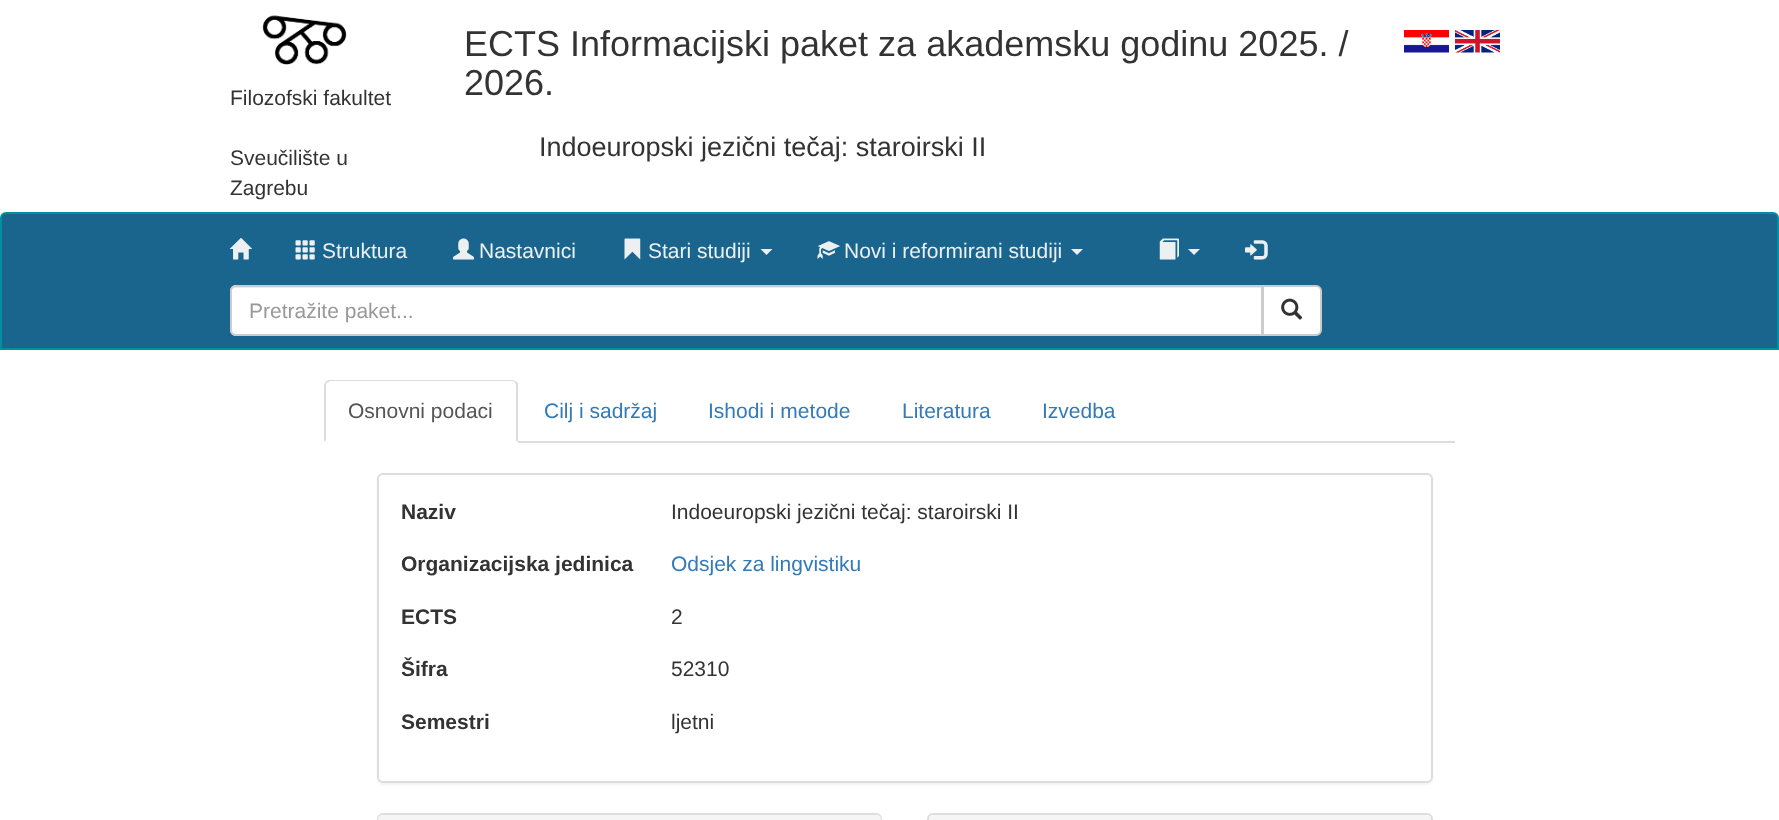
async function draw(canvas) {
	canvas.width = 1779;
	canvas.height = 820;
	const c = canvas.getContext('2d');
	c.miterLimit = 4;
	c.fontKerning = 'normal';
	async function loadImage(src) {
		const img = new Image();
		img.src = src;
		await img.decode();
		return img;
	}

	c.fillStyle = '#fff';
	c.fillRect(0, 0, 1779, 820);
	c.font = '36px Liberation Sans';
	c.fillStyle = '#333';
	c.fillText('ECTS Informacijski paket za akademsku godinu 2025. /', 464, 56);
	c.fillText('2026.', 464, 95);
	c.font = '27px Liberation Sans';
	c.fillText('Indoeuropski jezični tečaj: staroirski II', 539, 156);
	c.drawImage(await loadImage('img1.png'), 1404, 30, 45, 23);
	c.drawImage(await loadImage('img2.png'), 1455, 30, 45, 23);
	c.drawImage(await loadImage('img3.png'), 262, 15, 85, 50);
	c.font = '21px Liberation Sans';
	for (const [text, x, y] of [
		['Filozofski fakultet', 230, 105],
		['Sveučilište u', 230, 165],
		['Zagrebu', 230, 195],
	]) {
		c.fillText(text, x, y);
	}
	c.fillStyle = '#19658e';
	c.beginPath();
	c.roundRect(1, 213, 1777, 136, [5, 5, 0, 0]);
	c.fill();
	c.strokeStyle = '#008ea3';
	c.lineWidth = 2;
	c.stroke();
	c.drawImage(await loadImage('img4.png'), 229, 238, 23, 22);
	c.drawImage(await loadImage('img5.png'), 295, 240, 20, 20);
	c.fillStyle = '#ecf0f1';
	c.fillText('Struktura', 322, 258);
	c.drawImage(await loadImage('img6.png'), 453, 238, 21, 22);
	c.fillText('Nastavnici', 479, 258);
	c.drawImage(await loadImage('img7.png'), 624, 238, 17, 22);
	c.fillText('Stari studiji', 648, 258);
	c.beginPath();
	c.moveTo(760.5, 249);
	c.lineTo(772.5, 249);
	c.lineTo(766.5, 255);
	c.closePath();
	c.fill();
	c.drawImage(await loadImage('img8.png'), 817, 241, 23, 18);
	c.fillText('Novi i reformirani studiji', 844, 258);
	c.beginPath();
	c.moveTo(1071, 249);
	c.lineTo(1083, 249);
	c.lineTo(1077, 255);
	c.closePath();
	c.fill();
	c.drawImage(await loadImage('img9.png'), 1159, 238, 20, 22);
	c.beginPath();
	c.moveTo(1188, 249);
	c.lineTo(1200, 249);
	c.lineTo(1194, 255);
	c.closePath();
	c.fill();
	c.drawImage(await loadImage('img10.png'), 1245, 240, 23, 20);
	c.fillStyle = '#fff';
	c.beginPath();
	c.roundRect(230, 285, 1033, 51, [6, 0, 0, 6]);
	c.fill();
	c.fillStyle = '#ececec';
	c.beginPath();
	c.moveTo(236, 288);
	c.lineTo(1262, 288);
	c.lineTo(1262, 287);
	c.lineTo(236, 287);
	c.bezierCurveTo(233, 287, 231, 289, 231, 292);
	c.bezierCurveTo(231, 290, 233, 288, 236, 288);
	c.closePath();
	c.fill();
	c.beginPath();
	c.roundRect(231, 286, 1031, 49, [5, 0, 0, 5]);
	c.strokeStyle = '#ccc';
	c.stroke();
	c.fillStyle = '#999';
	c.fillText('Pretražite paket...', 249, 318);
	c.fillStyle = '#fff';
	c.beginPath();
	c.roundRect(1263, 286, 58, 49, [0, 5, 5, 0]);
	c.fill();
	c.stroke();
	c.drawImage(await loadImage('img11.png'), 1281, 298, 22, 22);
	c.fillStyle = '#ddd';
	c.fillRect(518, 441, 937, 2);
	c.beginPath();
	c.moveTo(330, 380);
	c.bezierCurveTo(329, 380, 327, 380, 326, 381);
	c.lineTo(327, 383);
	c.lineTo(330, 381);
	c.lineTo(512, 381);
	c.lineTo(515, 382);
	c.lineTo(516, 381);
	c.lineTo(512, 380);
	c.closePath();
	c.fill();
	c.beginPath();
	c.moveTo(516, 381);
	c.lineTo(518, 383);
	c.lineTo(518, 442);
	c.lineTo(516, 441);
	c.lineTo(516, 386);
	c.bezierCurveTo(516, 384, 515, 383, 515, 382);
	c.closePath();
	c.fill();
	c.beginPath();
	c.moveTo(324, 386);
	c.lineTo(324, 442);
	c.lineTo(326, 440);
	c.lineTo(326, 386);
	c.bezierCurveTo(326, 385, 326, 383, 327, 383);
	c.lineTo(326, 381);
	c.bezierCurveTo(325, 382, 324, 384, 324, 386);
	c.closePath();
	c.fill();
	c.fillStyle = '#555';
	c.fillText('Osnovni podaci', 348, 418);
	c.fillStyle = '#337ab7';
	for (const [text, x, y] of [
		['Cilj i sadržaj', 544, 418],
		['Ishodi i metode', 708, 418],
		['Literatura', 902, 418],
		['Izvedba', 1042, 418],
	]) {
		c.fillText(text, x, y);
	}
	c.fillStyle = '#0000000d';
	c.filter = 'blur(1px)';
	c.beginPath();
	c.roundRect(377, 474, 1056, 311, 6);
	c.fill();
	c.filter = 'none';
	c.fillStyle = '#fff';
	c.beginPath();
	c.roundRect(378, 474, 1054, 308, 5);
	c.fill();
	c.strokeStyle = '#ddd';
	c.stroke();
	c.font = 'bold 21px Liberation Sans';
	c.fillStyle = '#333';
	c.fillText('Naziv', 401, 519);
	c.font = '21px Liberation Sans';
	c.fillText('Indoeuropski jezični tečaj: staroirski II', 671, 519);
	c.font = 'bold 21px Liberation Sans';
	c.fillText('Organizacijska jedinica', 401, 571);
	c.font = '21px Liberation Sans';
	c.fillStyle = '#337ab7';
	c.fillText('Odsjek za lingvistiku', 671, 571);
	c.font = 'bold 21px Liberation Sans';
	c.fillStyle = '#333';
	c.fillText('ECTS', 401, 624);
	c.font = '21px Liberation Sans';
	c.fillText('2', 671, 624);
	c.font = 'bold 21px Liberation Sans';
	c.fillText('Šifra', 401, 676);
	c.font = '21px Liberation Sans';
	c.fillText('52310', 671, 676);
	c.font = 'bold 21px Liberation Sans';
	c.fillText('Semestri', 401, 729);
	c.font = '21px Liberation Sans';
	c.fillText('ljetni', 671, 729);
	c.beginPath();
	c.roundRect(378, 814, 503, 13, 5);
	c.stroke();
	c.fillStyle = '#f5f5f5';
	c.beginPath();
	c.moveTo(383, 815);
	c.lineTo(876, 815);
	c.bezierCurveTo(879, 815, 881, 817, 881, 820);
	c.lineTo(881, 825);
	c.lineTo(378, 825);
	c.lineTo(378, 820);
	c.bezierCurveTo(378, 817, 380, 815, 383, 815);
	c.closePath();
	c.fill();
	c.beginPath();
	c.roundRect(928, 814, 504, 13, 5);
	c.stroke();
	c.beginPath();
	c.moveTo(934, 815);
	c.lineTo(1426, 815);
	c.bezierCurveTo(1429, 815, 1431, 817, 1431, 820);
	c.lineTo(1431, 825);
	c.lineTo(929, 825);
	c.lineTo(929, 820);
	c.bezierCurveTo(929, 817, 931, 815, 934, 815);
	c.closePath();
	c.fill();
}

draw(document.querySelector('canvas'));
